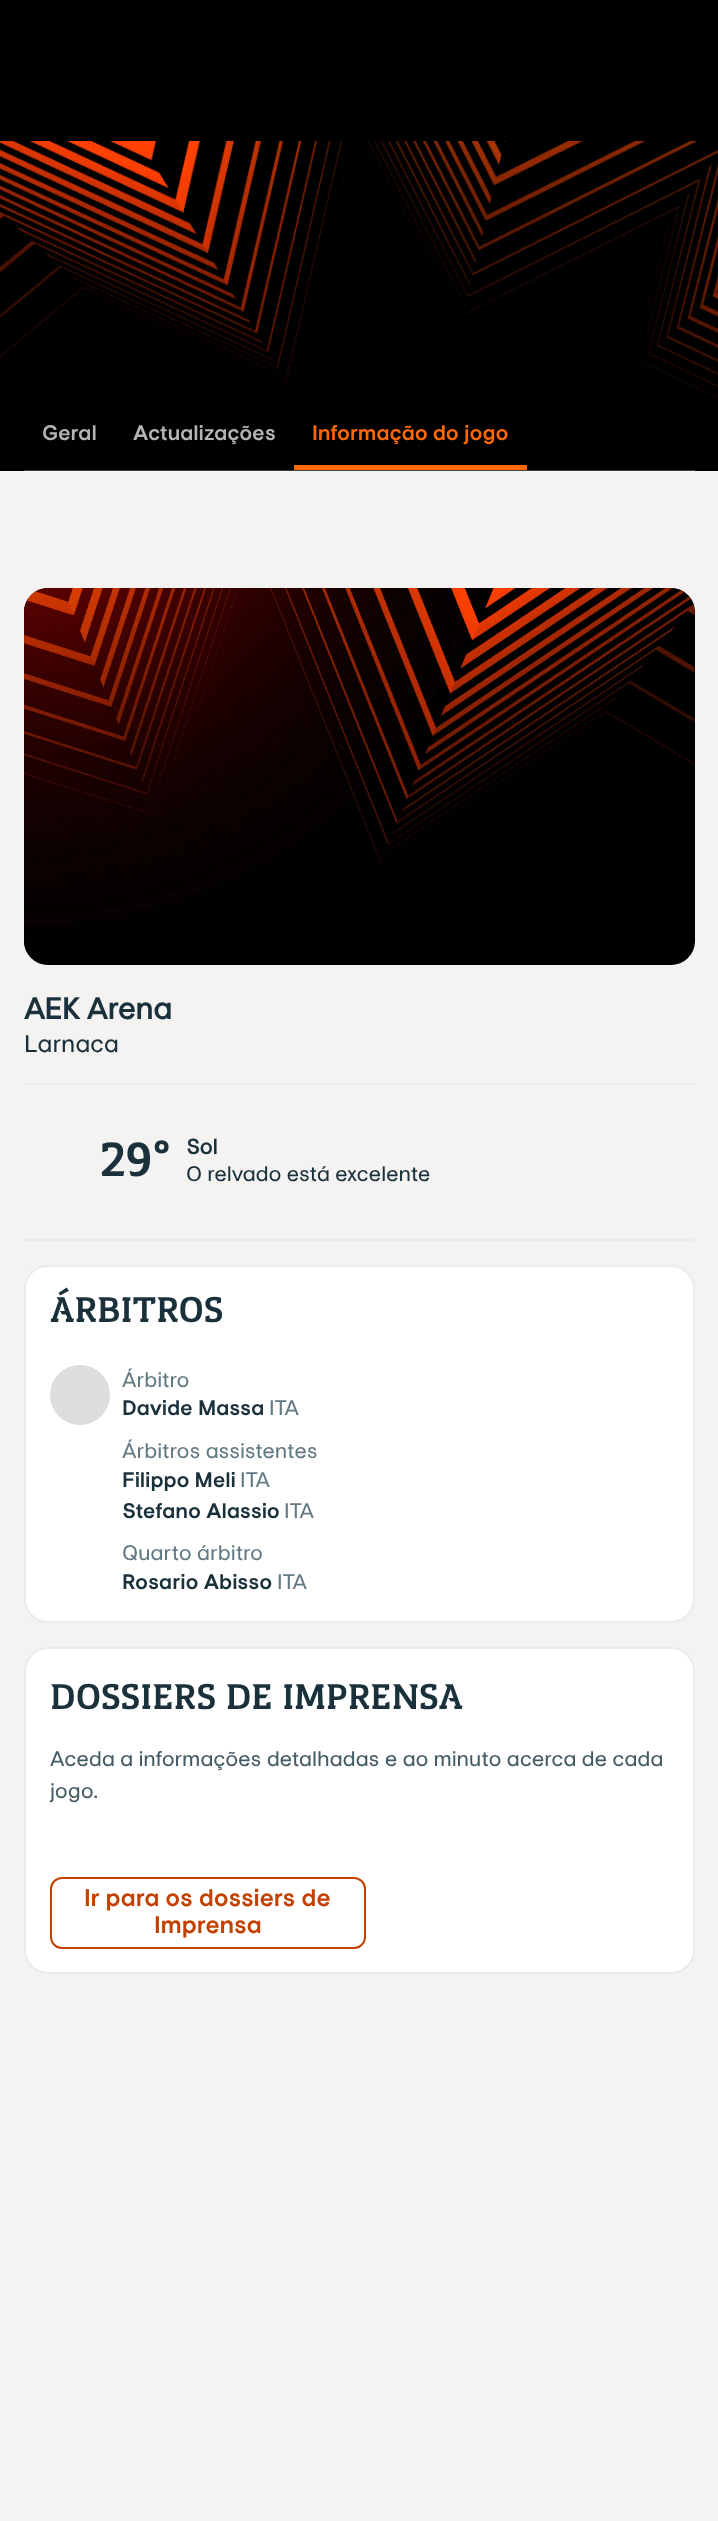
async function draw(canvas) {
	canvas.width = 718;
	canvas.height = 2521;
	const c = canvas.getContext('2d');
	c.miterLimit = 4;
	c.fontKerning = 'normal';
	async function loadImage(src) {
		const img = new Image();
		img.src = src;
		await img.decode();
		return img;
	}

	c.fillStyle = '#f4f3f2';
	c.fillRect(0, 0, 718, 2521);
	c.fillStyle = '#000';
	c.fillRect(0, 0, 718, 141);
	c.drawImage(await loadImage('img1.png'), 0, 141, 718, 330);
	c.fillStyle = '#ffffff40';
	c.fillRect(24, 470, 671, 2);
	c.font = 'bold 21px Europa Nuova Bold';
	c.fillStyle = '#b3b3b3';
	c.fillText('Geral', 42, 440);
	c.fillText('Actualizações', 133, 440);
	c.fillStyle = '#ff6900';
	c.fillText('Informação do jogo', 312, 440);
	c.fillRect(294, 465, 233, 5);
	c.fillStyle = '#000';
	c.beginPath();
	c.roundRect(24, 588, 671, 377, 24);
	c.fill();
	c.drawImage(await loadImage('img2.png'), 24, 588, 671, 377);
	c.font = 'bold 30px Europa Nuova';
	c.fillStyle = '#1a313c';
	c.fillText('AEK Arena', 24, 1019);
	c.font = '24px Europa Nuova';
	c.fillText('Larnaca', 24, 1052);
	c.fillStyle = '#ebebeb';
	c.fillRect(24, 1083, 671, 2);
	c.font = 'bold 48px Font';
	c.fillStyle = '#1a313c';
	c.fillText('29°', 99, 1176);
	c.font = 'bold 21px Europa Nuova';
	c.fillText('Sol', 186, 1154);
	c.font = '21px Europa Nuova';
	c.fillText('O relvado está excelente', 186, 1181);
	c.fillStyle = '#ebebeb';
	c.fillRect(24, 1239, 671, 2);
	c.fillStyle = '#fff';
	c.beginPath();
	c.roundRect(25, 1266, 669, 356, 23);
	c.fill();
	c.strokeStyle = '#ebebeb';
	c.lineWidth = 2;
	c.stroke();
	c.font = 'bold 36px Font';
	c.fillStyle = '#1a313c';
	c.fillText('Árbitros', 50, 1322);
	c.fillStyle = '#ddd';
	c.beginPath();
	c.arc(80, 1395, 30, 0, 2 * Math.PI);
	c.fill();
	c.font = '21px Europa Nuova';
	c.fillStyle = '#637a85';
	c.fillText('Árbitro', 122, 1387);
	c.font = 'bold 21px Europa Nuova Bold';
	c.fillStyle = '#1a313c';
	c.fillText('Davide Massa', 122, 1415);
	c.font = '21px Europa Nuova';
	c.fillStyle = '#637a85';
	c.fillText('ITA', 269, 1415);
	c.fillText('Árbitros assistentes', 122, 1458);
	c.font = 'bold 21px Europa Nuova Bold';
	c.fillStyle = '#1a313c';
	c.fillText('Filippo Meli', 122, 1487);
	c.font = '21px Europa Nuova';
	c.fillStyle = '#637a85';
	c.fillText('ITA', 240, 1487);
	c.font = 'bold 21px Europa Nuova Bold';
	c.fillStyle = '#1a313c';
	c.fillText('Stefano Alassio', 122, 1518);
	c.font = '21px Europa Nuova';
	c.fillStyle = '#637a85';
	c.fillText('ITA', 284, 1518);
	c.fillText('Quarto árbitro', 122, 1560);
	c.font = 'bold 21px Europa Nuova Bold';
	c.fillStyle = '#1a313c';
	c.fillText('Rosario Abisso', 122, 1589);
	c.font = '21px Europa Nuova';
	c.fillStyle = '#637a85';
	c.fillText('ITA', 277, 1589);
	c.fillStyle = '#fff';
	c.beginPath();
	c.roundRect(25, 1648, 669, 325, 23);
	c.fill();
	c.stroke();
	c.font = 'bold 36px Font';
	c.fillStyle = '#1a313c';
	c.fillText('Dossiers de imprensa', 50, 1709);
	c.font = '21px Europa Nuova';
	c.fillStyle = '#455c67';
	c.fillText('Aceda a informações detalhadas e ao minuto acerca de cada', 50, 1766);
	c.fillText('jogo.', 50, 1798);
	c.beginPath();
	c.roundRect(51, 1878, 314, 70, 11);
	c.strokeStyle = '#c34100';
	c.stroke();
	c.font = 'bold 24px Europa Nuova Bold';
	c.fillStyle = '#c34100';
	c.fillText('Ir para os dossiers de', 84, 1906);
	c.fillText('Imprensa', 154, 1933);
}

draw(document.querySelector('canvas'));
